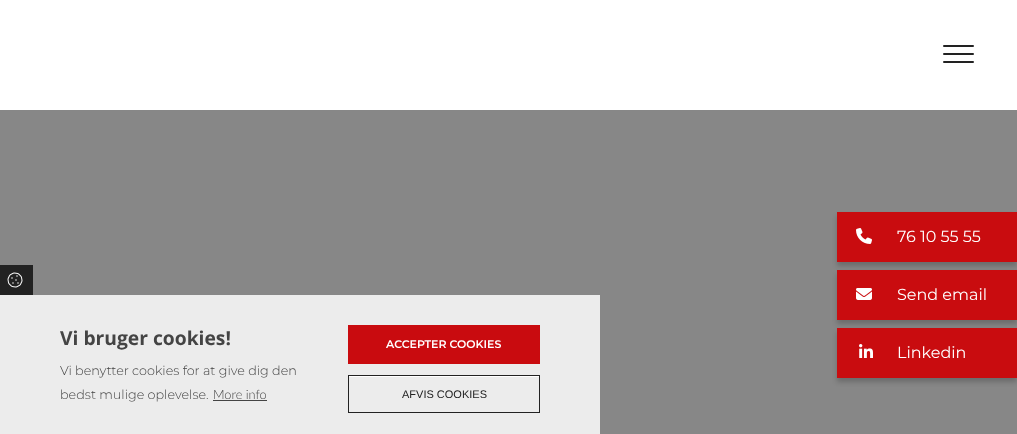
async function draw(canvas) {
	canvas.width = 1017;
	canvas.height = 434;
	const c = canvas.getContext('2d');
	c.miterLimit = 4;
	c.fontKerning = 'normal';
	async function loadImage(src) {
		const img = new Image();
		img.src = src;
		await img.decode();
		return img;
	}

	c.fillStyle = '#fff';
	c.fillRect(0, 0, 1017, 434);
	for (const [x, y, w, h, color] of [
		[0, 110, 1017, 324, '#878787'],
		[0, 295, 600, 139, '#ececec'],
		[0, 265, 33, 30, '#222'],
	]) {
		c.fillStyle = color;
		c.fillRect(x, y, w, h);
	}
	c.drawImage(await loadImage('img1.png'), 7, 272, 16, 16);
	c.font = 'bold 19.25px Open Sans';
	c.fillStyle = '#444';
	c.fillText('Vi bruger cookies!', 60, 345);
	c.font = '300 12.75px Montserrat';
	c.fillText('Vi benytter cookies for at give dig den', 60, 375);
	c.fillText('bedst mulige oplevelse.', 60, 399);
	c.font = '300 12.75px Lato';
	c.fillText('More info', 213, 399);
	c.fillRect(213, 400, 54, 1);
	c.fillStyle = '#c90b0f';
	c.fillRect(348, 325, 192, 39);
	c.font = '600 11px Montserrat';
	c.fillStyle = '#fff';
	c.fillText('ACCEPTER COOKIES', 386, 348);
	c.fillRect(349, 376, 190, 1);
	c.strokeStyle = '#222';
	c.strokeRect(348.5, 375.5, 191, 37);
	c.font = '11px Liberation Sans';
	c.fillStyle = '#222';
	c.fillText('AFVIS COOKIES', 402, 398);
	c.beginPath();
	c.roundRect(943, 53, 31, 2, 1);
	c.fill();
	c.beginPath();
	c.roundRect(943, 45, 31, 2, 1);
	c.fill();
	c.beginPath();
	c.roundRect(943, 61, 31, 2, 1);
	c.fill();
	c.fillStyle = '#00000033';
	c.filter = 'blur(2.5px)';
	c.beginPath();
	c.rect(837, 216, 180, 50);
	c.fill();
	c.filter = 'none';
	c.fillStyle = '#c90c0f';
	c.fillRect(837, 212, 180, 50);
	c.drawImage(await loadImage('img2.png'), 856, 228, 16, 16);
	c.font = '16px Montserrat';
	c.fillStyle = '#fff';
	c.fillText('76 10 55 55', 897, 242);
	c.fillStyle = '#00000033';
	c.filter = 'blur(2.5px)';
	c.beginPath();
	c.rect(837, 274, 180, 50);
	c.fill();
	c.filter = 'none';
	c.fillStyle = '#c90c0f';
	c.fillRect(837, 270, 180, 50);
	c.drawImage(await loadImage('img3.png'), 856, 288, 16, 12);
	c.fillStyle = '#fff';
	c.fillText('Send email', 897, 300);
	c.fillStyle = '#00000033';
	c.filter = 'blur(2.5px)';
	c.beginPath();
	c.rect(837, 332, 180, 50);
	c.fill();
	c.filter = 'none';
	c.fillStyle = '#c90c0f';
	c.fillRect(837, 328, 180, 50);
	c.drawImage(await loadImage('img4.png'), 859, 344, 14, 14);
	c.fillStyle = '#fff';
	c.fillText('Linkedin', 897, 358);
}

draw(document.querySelector('canvas'));
